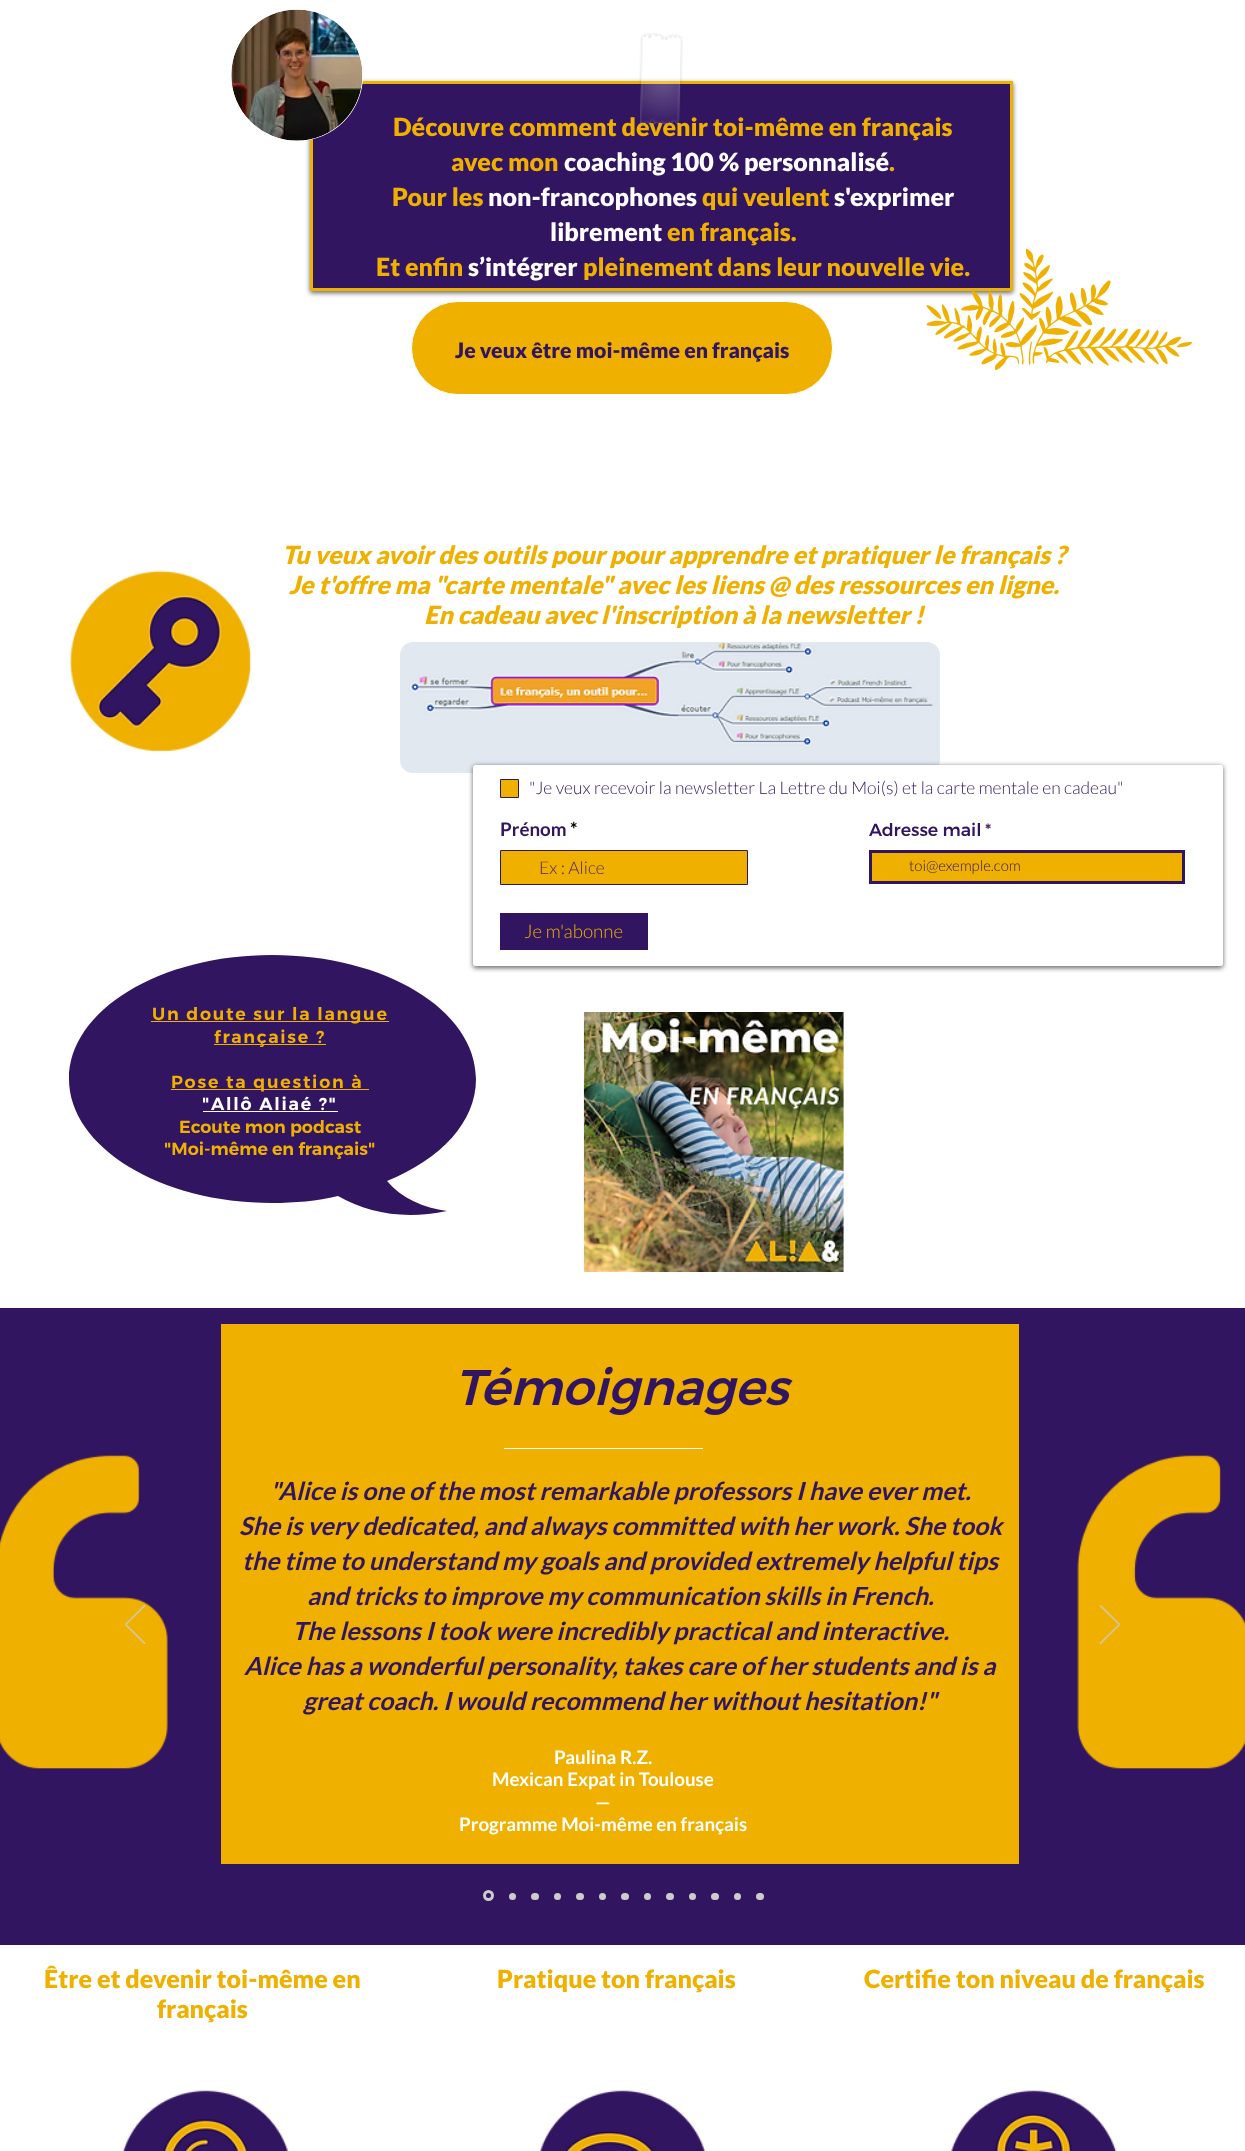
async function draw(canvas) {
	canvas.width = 1245;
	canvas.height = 2151;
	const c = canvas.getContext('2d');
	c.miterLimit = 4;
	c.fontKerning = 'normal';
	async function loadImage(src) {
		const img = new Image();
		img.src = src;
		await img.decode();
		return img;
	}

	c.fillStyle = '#fff';
	c.fillRect(0, 0, 1245, 2151);
	c.fillStyle = '#00000099';
	c.filter = 'blur(2.5px)';
	c.beginPath();
	c.rect(310, 83, 703, 210);
	c.fill();
	c.filter = 'none';
	c.fillStyle = '#321561';
	c.beginPath();
	c.rect(311.5, 82.5, 700, 207);
	c.fill();
	c.strokeStyle = '#efb000';
	c.lineWidth = 3;
	c.stroke();
	c.fillStyle = '#fff';
	c.beginPath();
	c.roundRect(231, 10, 132, 131, 65.5);
	c.fill();
	c.drawImage(await loadImage('img1.png'), 231, 9, 132, 132);
	c.font = '900 25px Lato';
	c.fillStyle = '#efb000';
	c.fillText('Découvre comment devenir toi-même en français', 393, 136);
	c.drawImage(await loadImage('img2.png'), 639, 33, 44, 93);
	c.fillText('avec mon', 451, 171);
	c.fillStyle = '#fff';
	c.fillText('coaching 100 % personnalisé', 564, 171);
	c.fillStyle = '#efb000';
	c.fillText('.', 889, 171);
	c.fillText('Pour les', 392, 206);
	c.fillStyle = '#fff';
	c.fillText('non-francophones', 488, 206);
	c.fillStyle = '#efb000';
	c.fillText('qui veulent', 702, 206);
	c.fillStyle = '#fff';
	c.fillText('s\'exprimer', 834, 206);
	c.fillText('librement', 550, 241);
	c.fillStyle = '#efb000';
	c.fillText('en français.', 667, 241);
	c.fillText('Et enfin', 376, 276);
	c.fillStyle = '#fff';
	c.fillText('s’intégrer', 468, 276);
	c.fillStyle = '#efb000';
	c.fillText('pleinement dans leur nouvelle vie.', 583, 276);
	c.beginPath();
	c.roundRect(411.5, 301.5, 421, 93, 46.5);
	c.fill();
	c.strokeStyle = '#fff';
	c.lineWidth = 1;
	c.stroke();
	c.font = '900 21.25px Lato';
	c.fillStyle = '#321561';
	c.fillText('Je veux être moi-même en français', 455, 358);
	c.drawImage(await loadImage('img3.png'), 926, 248, 267, 122);
	c.drawImage(await loadImage('img4.png'), 70, 570, 182, 182);
	c.font = 'italic 900 25px Lato';
	c.fillStyle = '#efb000';
	for (const [text, x, y] of [
		['Tu veux avoir des outils pour pour apprendre et pratiquer le français ?', 282, 564],
		['Je t\'offre ma "carte mentale" avec les liens @ des ressources en ligne.', 289, 594],
		['En cadeau avec l\'inscription à la newsletter !', 424, 624],
	]) {
		c.fillText(text, x, y);
	}
	c.drawImage(await loadImage('img5.png'), 400, 642, 540, 131);
	c.fillStyle = '#00000099';
	c.filter = 'blur(2.5px)';
	c.beginPath();
	c.roundRect(473, 766, 750, 202, 2.5);
	c.fill();
	c.filter = 'none';
	c.fillStyle = '#fff';
	c.beginPath();
	c.roundRect(473, 765, 750, 201, 2.5);
	c.fill();
	c.fillStyle = '#efb000';
	c.beginPath();
	c.rect(500.5, 779.5, 18, 18);
	c.fill();
	c.strokeStyle = '#321561';
	c.stroke();
	c.font = '300 17.5px Lato';
	c.fillStyle = '#321561';
	c.fillText('"Je veux recevoir la newsletter La Lettre du Moi(s) et la carte mentale en cadeau"', 529, 794);
	c.font = 'bold 18.75px Lato';
	c.fillText('Prénom', 500, 836);
	c.fillStyle = '#000';
	c.fillText('*', 570, 836);
	c.fillStyle = '#efb000';
	c.beginPath();
	c.rect(500.5, 850.5, 247, 34);
	c.fill();
	c.stroke();
	c.font = '300 17.5px Lato';
	c.fillStyle = '#522662';
	c.fillText('Ex : Alice', 539, 874);
	c.font = '500 17.5px Montserrat';
	c.fillStyle = '#321561';
	c.fillText('Adresse mail', 869, 836);
	c.fillStyle = '#522662';
	c.fillText('*', 985, 836);
	c.fillStyle = '#efb000';
	c.beginPath();
	c.rect(870.5, 851.5, 313, 31);
	c.fill();
	c.lineWidth = 3;
	c.stroke();
	c.font = '300 15px Lato';
	c.fillStyle = '#321561';
	c.fillText('toi@exemple.com', 909, 871);
	c.fillRect(500, 913, 148, 37);
	c.font = '300 18.75px Lato';
	c.fillStyle = '#efb000';
	c.fillText('Je m\'abonne', 524, 938);
	c.fillStyle = '#321561';
	c.beginPath();
	c.moveTo(387, 1181);
	c.bezierCurveTo(441, 1159, 476, 1122, 476, 1079);
	c.bezierCurveTo(476, 1010, 385, 955, 272, 955);
	c.bezierCurveTo(160, 955, 69, 1010, 69, 1079);
	c.bezierCurveTo(69, 1147, 160, 1203, 272, 1203);
	c.bezierCurveTo(295, 1203, 317, 1201, 338, 1196);
	c.bezierCurveTo(368, 1213, 404, 1220, 447, 1211);
	c.bezierCurveTo(424, 1208, 401, 1198, 387, 1181);
	c.closePath();
	c.fill();
	c.fillStyle = '#efb000';
	c.fillRect(151, 1021, 238, 1);
	c.letterSpacing = '1.75px';
	c.font = '600 17.5px Montserrat';
	c.fillText('Un doute sur la langue', 152, 1020);
	c.fillRect(214, 1044, 112, 1);
	c.fillText('française ?', 214, 1043);
	c.fillRect(171, 1089, 198, 1);
	c.fillText('Pose ta question à', 171, 1088);
	c.fillStyle = '#fff';
	c.fillText('"Allô Aliaé ?"', 202, 1110);
	c.fillRect(203, 1111, 135, 1);
	c.letterSpacing = '0px';
	c.fillStyle = '#efb000';
	c.fillText('Ecoute mon podcast', 179, 1133);
	c.fillText('"Moi-même en français"', 164, 1155);
	c.drawImage(await loadImage('img6.png'), 583, 1012, 261, 260);
	c.fillStyle = '#321561';
	c.fillRect(0, 1308, 1245, 637);
	c.drawImage(await loadImage('img7.png'), 0, 1455, 1245, 314);
	c.save();
	c.beginPath();
	c.rect(125, 1605, 20, 39);
	c.clip();
	c.beginPath();
	c.moveTo(144.5, 1644);
	c.lineTo(125, 1624.5);
	c.lineTo(144.5, 1605);
	c.lineTo(145, 1606);
	c.lineTo(126, 1624.5);
	c.lineTo(145, 1643);
	c.closePath();
	c.strokeStyle = '#ccc';
	c.lineWidth = 1;
	c.stroke();
	c.restore();
	c.fillStyle = '#efb000';
	c.fillRect(221, 1324, 798, 540);
	c.font = 'italic 500 50px Montserrat';
	c.fillStyle = '#321561';
	c.fillText('Témoignages', 454, 1405);
	c.fillStyle = '#fff';
	c.fillRect(504, 1448, 199, 1);
	c.font = 'italic bold 25px Lato';
	c.fillStyle = '#321561';
	for (const [text, x, y] of [
		['"Alice is one of the most remarkable professors I have ever met.', 270, 1500],
		['She is very dedicated, and always committed with her work. She took', 239, 1535],
		['the time to understand my goals and provided extremely helpful tips', 242, 1570],
		['and tricks to improve my communication skills in French.', 307, 1605],
		['The lessons I took were incredibly practical and interactive.', 292, 1640],
		['Alice has a wonderful personality, takes care of her students and is a', 244, 1675],
		['great coach. I would recommend her without hesitation!"', 303, 1710],
	]) {
		c.fillText(text, x, y);
	}
	c.font = 'bold 18.75px Lato';
	c.fillStyle = '#fff';
	for (const [text, x, y] of [
		['Paulina R.Z.', 554, 1764],
		['Mexican Expat in Toulouse', 492, 1786],
		['—', 595, 1809],
		['Programme Moi-même en français', 459, 1831],
	]) {
		c.fillText(text, x, y);
	}
	c.save();
	c.beginPath();
	c.rect(1100, 1605, 20, 39);
	c.clip();
	c.beginPath();
	c.moveTo(1100.5, 1644);
	c.lineTo(1120, 1624.5);
	c.lineTo(1100.5, 1605);
	c.lineTo(1100, 1606);
	c.lineTo(1119, 1624.5);
	c.lineTo(1100, 1643);
	c.closePath();
	c.strokeStyle = '#ccc';
	c.lineWidth = 1;
	c.stroke();
	c.restore();
	c.beginPath();
	c.arc(488.5, 1895.5, 4, 0, 2 * Math.PI);
	c.strokeStyle = '#ccc';
	c.stroke();
	c.fillStyle = '#ccc';
	c.beginPath();
	c.arc(512.5, 1896.5, 3.5, 0, 2 * Math.PI);
	c.fill();
	c.beginPath();
	c.roundRect(531, 1893, 8, 7, 3.5);
	c.fill();
	c.beginPath();
	c.arc(557.5, 1896.5, 3.5, 0, 2 * Math.PI);
	c.fill();
	c.beginPath();
	c.roundRect(576, 1893, 8, 7, 3.5);
	c.fill();
	c.beginPath();
	c.arc(602.5, 1896.5, 3.5, 0, 2 * Math.PI);
	c.fill();
	c.beginPath();
	c.roundRect(621, 1893, 8, 7, 3.5);
	c.fill();
	c.beginPath();
	c.arc(647.5, 1896.5, 3.5, 0, 2 * Math.PI);
	c.fill();
	c.beginPath();
	c.roundRect(666, 1893, 8, 7, 3.5);
	c.fill();
	c.beginPath();
	c.arc(692.5, 1896.5, 3.5, 0, 2 * Math.PI);
	c.fill();
	c.beginPath();
	c.roundRect(711, 1893, 8, 7, 3.5);
	c.fill();
	c.beginPath();
	c.arc(737.5, 1896.5, 3.5, 0, 2 * Math.PI);
	c.fill();
	c.beginPath();
	c.roundRect(756, 1893, 8, 7, 3.5);
	c.fill();
	c.font = '900 25px Lato';
	c.fillStyle = '#efb000';
	for (const [text, x, y] of [
		['Être et devenir toi-même en', 44, 1988],
		['français', 157, 2018],
		['Pratique ton français', 497, 1988],
		['Certifie ton niveau de français', 864, 1988],
	]) {
		c.fillText(text, x, y);
	}
	c.drawImage(await loadImage('img8.png'), 122, 2090, 167, 61);
	c.drawImage(await loadImage('img9.png'), 539, 2090, 167, 61);
	c.drawImage(await loadImage('img10.png'), 951, 2090, 166, 61);
}

draw(document.querySelector('canvas'));
